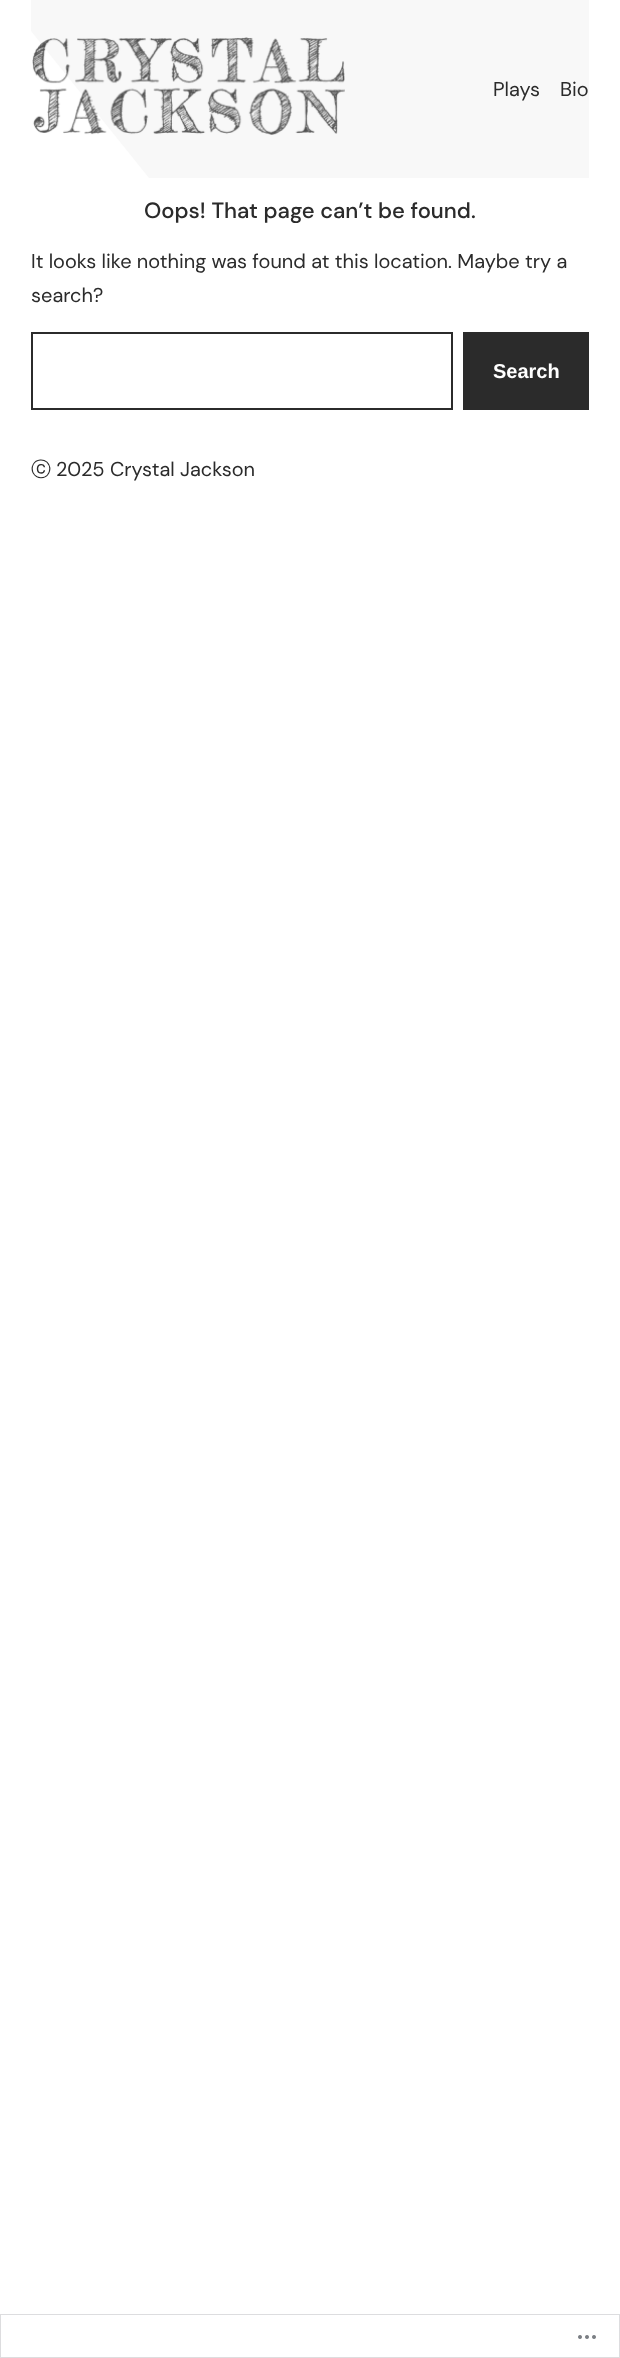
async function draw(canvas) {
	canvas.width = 620;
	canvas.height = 2358;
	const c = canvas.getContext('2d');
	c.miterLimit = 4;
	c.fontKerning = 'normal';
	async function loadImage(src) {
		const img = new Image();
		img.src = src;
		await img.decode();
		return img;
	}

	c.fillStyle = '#fff';
	c.fillRect(0, 0, 620, 2358);
	c.fillStyle = '#f8f8f8';
	c.beginPath();
	c.moveTo(31, 0);
	c.lineTo(31, 31);
	c.lineTo(149, 178);
	c.lineTo(589, 178);
	c.lineTo(589, 0);
	c.closePath();
	c.fill();
	c.drawImage(await loadImage('img1.png'), 32, 37, 313, 98);
	c.font = '20px DM Sans';
	c.fillStyle = '#2b2b2b';
	c.fillText('Plays', 493, 96);
	c.fillText('Bio', 560, 96);
	c.font = '500 22px DM Sans';
	c.fillText('Oops! That page can’t be found.', 144, 218);
	c.font = '20px DM Sans';
	c.fillText('It looks like nothing was found at this location. Maybe try a', 31, 268);
	c.fillText('search?', 31, 302);
	c.strokeStyle = '#2b2b2b';
	c.lineWidth = 2;
	c.strokeRect(32, 333, 420, 76);
	c.fillRect(463, 332, 126, 78);
	c.font = 'bold 20px Liberation Sans';
	c.fillStyle = '#fff';
	c.fillText('Search', 493, 378);
	c.font = '500 20px WenQuanYi Zen Hei';
	c.fillStyle = '#2b2b2b';
	c.fillText('ⓒ', 31, 476);
	c.font = '20px DM Sans';
	c.fillText('2025 Crystal Jackson', 56, 476);
	c.strokeStyle = '#dddddf';
	c.lineWidth = 1;
	c.strokeRect(0.5, 2314.5, 619, 43);
	c.drawImage(await loadImage('img2.png'), 578, 2335, 18, 4);
}

draw(document.querySelector('canvas'));
